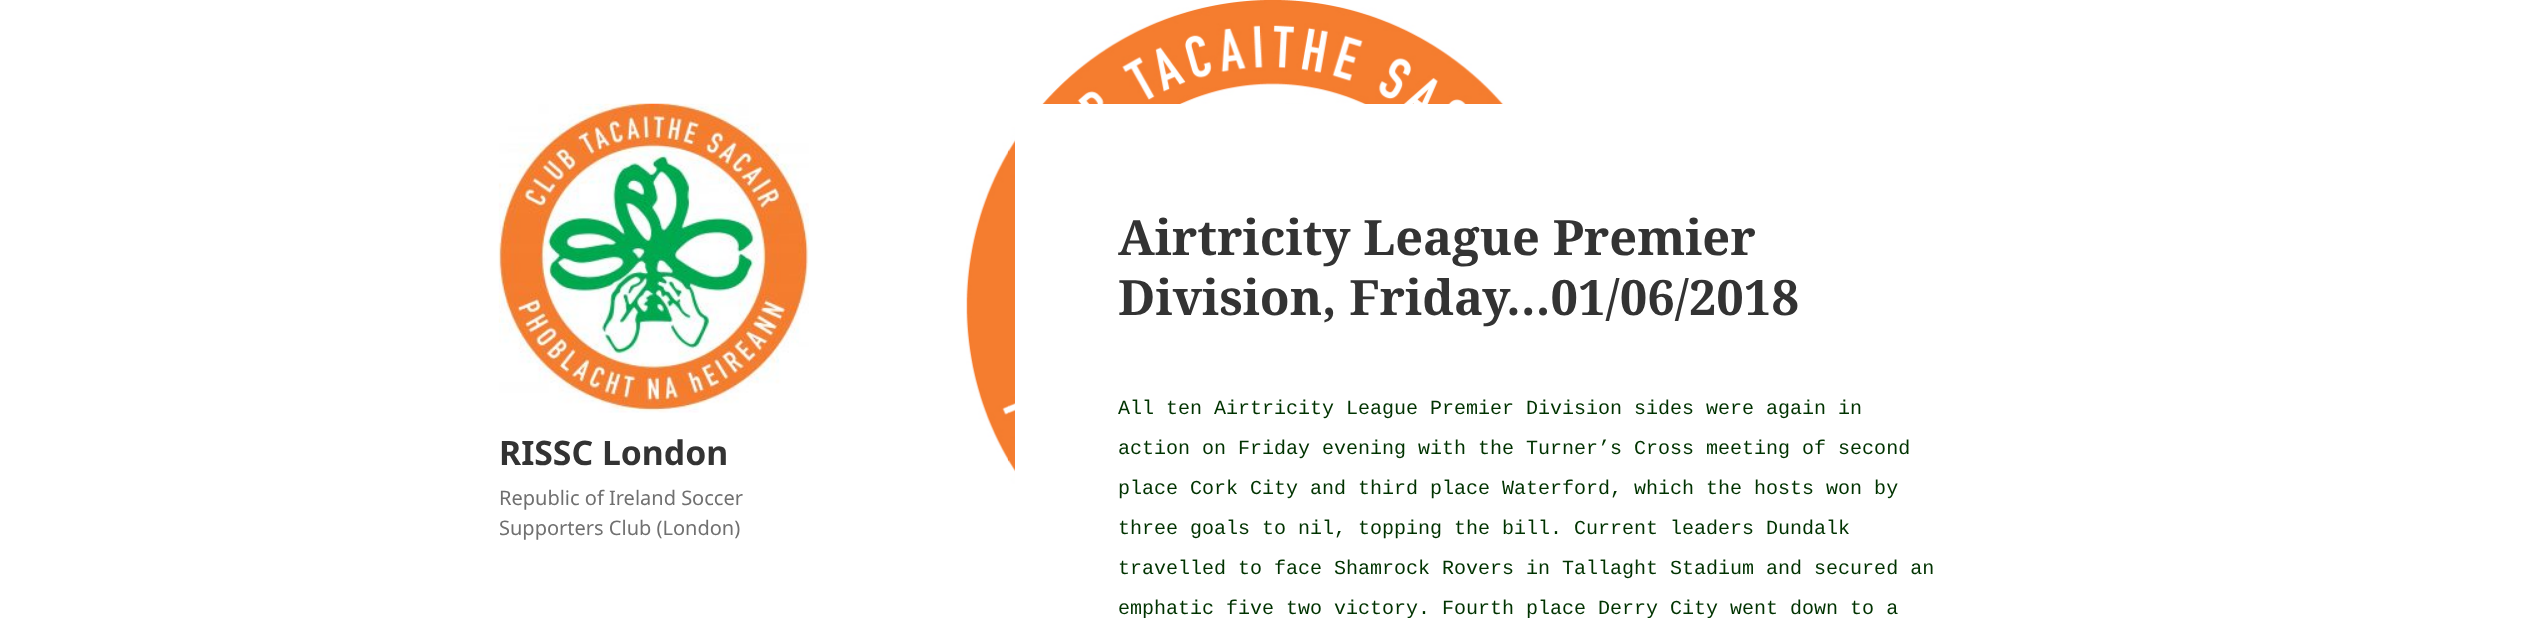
async function draw(canvas) {
	canvas.width = 2544;
	canvas.height = 618;
	const c = canvas.getContext('2d');
	c.miterLimit = 4;
	c.fontKerning = 'normal';
	async function loadImage(src) {
		const img = new Image();
		img.src = src;
		await img.decode();
		return img;
	}

	c.fillStyle = '#fff';
	c.fillRect(0, 0, 2544, 618);
	c.drawImage(await loadImage('img1.png'), 966, 0, 613, 612);
	c.drawImage(await loadImage('img2.png'), 498, 103, 311, 310);
	c.font = 'bold 33.75px Noto Sans';
	c.fillStyle = '#333';
	c.fillText('RISSC London', 499, 465);
	c.font = '20px Noto Sans';
	c.fillStyle = '#707070';
	c.fillText('Republic of Ireland Soccer', 499, 505);
	c.fillText('Supporters Club (London)', 499, 535);
	c.fillStyle = '#fff';
	c.fillRect(1015, 104, 564, 508);
	c.font = 'bold 48.75px Noto Serif';
	c.fillStyle = '#333';
	c.fillText('Airtricity League Premier', 1118, 255);
	c.fillText('Division, Friday…01/06/2018', 1118, 315);
	c.font = '20px Liberation Mono';
	c.fillStyle = '#030';
	for (const [text, x, y] of [
		['All ten Airtricity League Premier Division sides were again in', 1118, 414],
		['action on Friday evening with the Turner’s Cross meeting of second', 1118, 454],
		['place Cork City and third place Waterford, which the hosts won by', 1118, 494],
		['three goals to nil, topping the bill. Current leaders Dundalk', 1118, 534],
		['travelled to face Shamrock Rovers in Tallaght Stadium and secured an', 1118, 574],
		['emphatic five two victory. Fourth place Derry City went down to a', 1118, 614],
	]) {
		c.fillText(text, x, y);
	}
}

draw(document.querySelector('canvas'));
